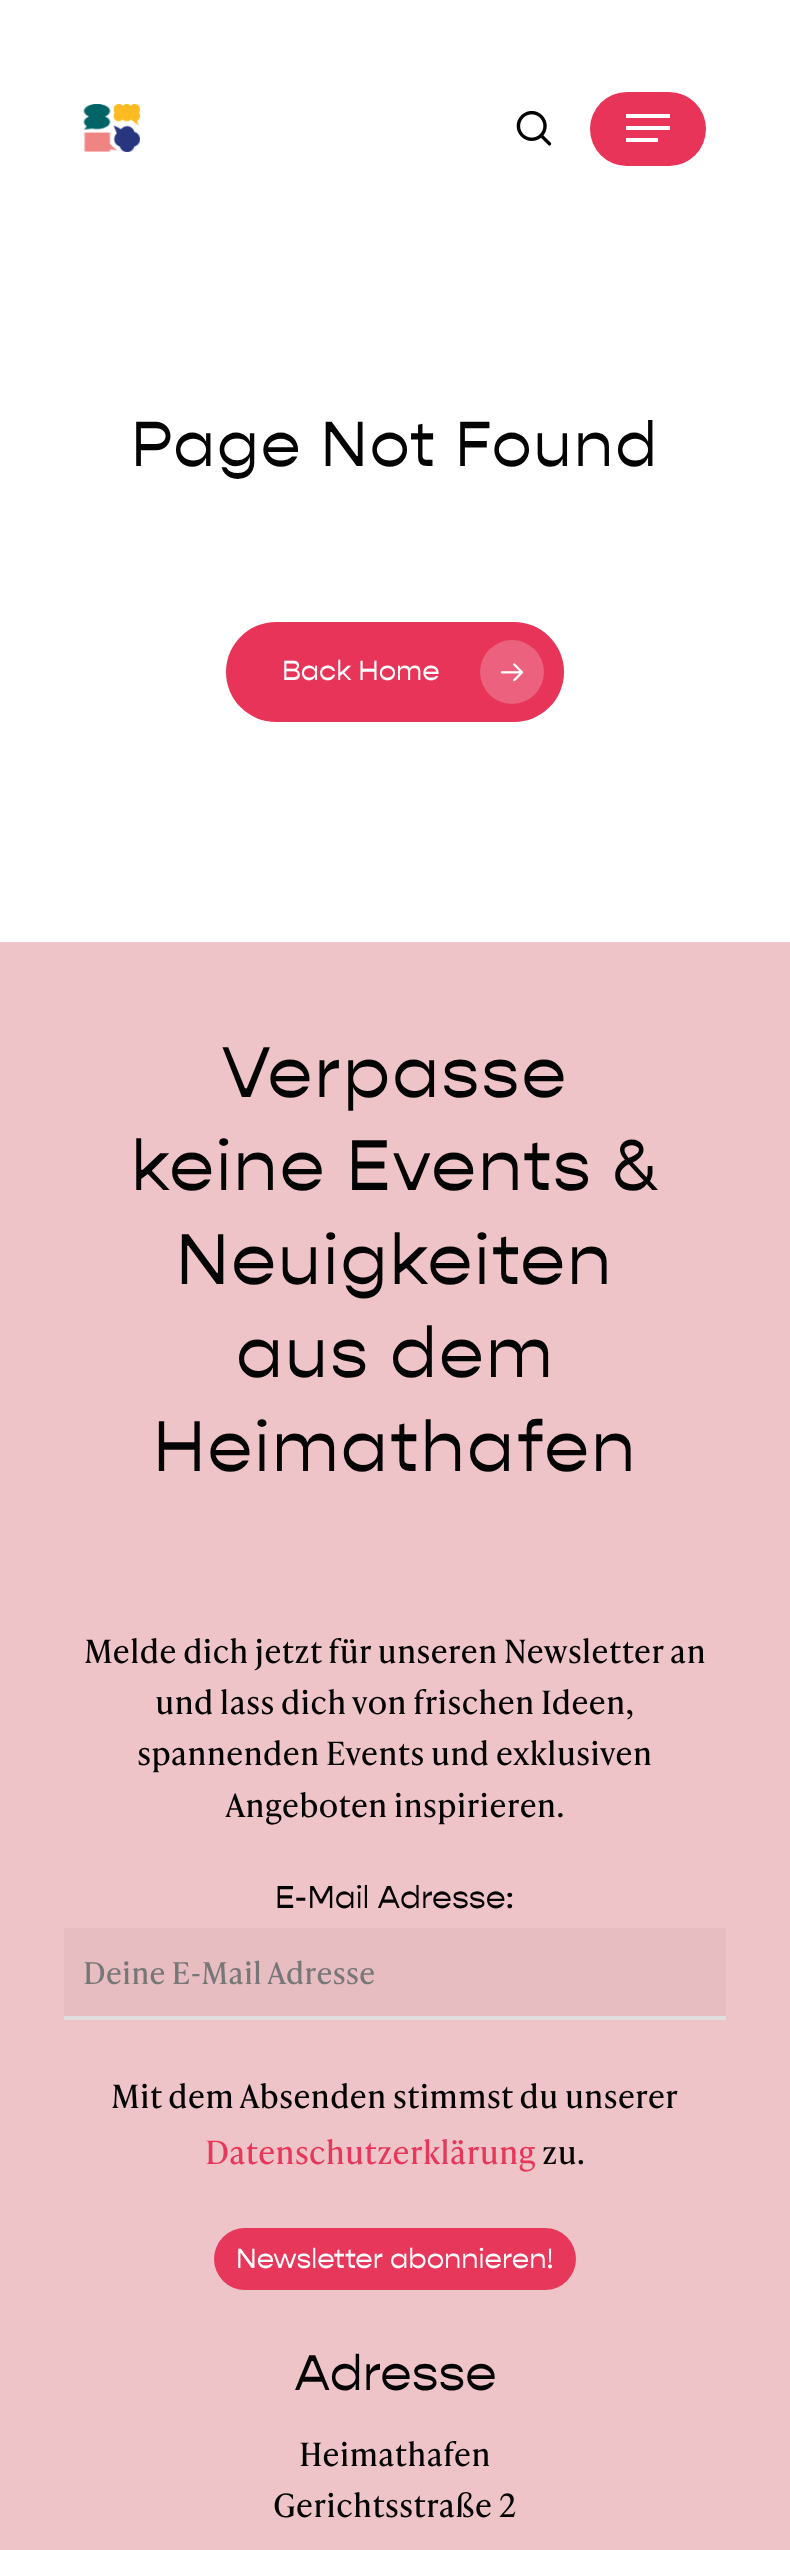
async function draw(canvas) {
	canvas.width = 790;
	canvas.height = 2550;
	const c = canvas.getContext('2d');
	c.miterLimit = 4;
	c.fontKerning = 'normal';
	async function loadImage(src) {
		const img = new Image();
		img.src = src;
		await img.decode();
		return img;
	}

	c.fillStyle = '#fff';
	c.fillRect(0, 0, 790, 2550);
	c.drawImage(await loadImage('img1.png'), 83, 104, 57, 48);
	c.drawImage(await loadImage('img2.png'), 516, 110, 36, 36);
	c.fillStyle = '#e73458';
	c.beginPath();
	c.roundRect(590, 92, 116, 74, 37);
	c.fill();
	for (const [x, y, w, h, color] of [
		[626, 114, 44, 4, '#fff'],
		[626, 138, 32, 4, '#fff'],
		[626, 126, 44, 4, '#fff'],
	]) {
		c.fillStyle = color;
		c.fillRect(x, y, w, h);
	}
	c.letterSpacing = '2px';
	c.font = '64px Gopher';
	c.fillStyle = '#050405';
	c.fillText('Page Not Found', 131, 466);
	c.fillStyle = '#e73458';
	c.beginPath();
	c.roundRect(226, 622, 338, 100, 50);
	c.fill();
	c.letterSpacing = '0px';
	c.font = '28px Gopher';
	c.fillStyle = '#fffefe';
	c.fillText('Back Home', 282, 680);
	c.fillStyle = '#ec617d';
	c.beginPath();
	c.arc(512, 672, 32, 0, 2 * Math.PI);
	c.fill();
	c.drawImage(await loadImage('img3.png'), 500, 663, 24, 19);
	c.fillStyle = '#efc4c8';
	c.fillRect(0, 942, 790, 1608);
	c.letterSpacing = '2px';
	c.font = '72px Gopher';
	c.fillStyle = '#050405';
	for (const [text, x, y] of [
		['Verpasse', 221, 1097],
		['keine Events &', 131, 1190],
		['Neuigkeiten', 176, 1284],
		['aus dem', 236, 1377],
		['Heimathafen', 153, 1471],
	]) {
		c.fillText(text, x, y);
	}
	c.letterSpacing = '0px';
	c.font = '32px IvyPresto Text';
	for (const [text, x, y] of [
		['Melde dich jetzt für unseren Newsletter an', 84, 1663],
		['und lass dich von frischen Ideen,', 155, 1714],
		['spannenden Events und exklusiven', 137, 1765],
		['Angeboten inspirieren.', 225, 1817],
	]) {
		c.fillText(text, x, y);
	}
	c.font = '32px Gopher';
	c.fillText('E-Mail Adresse:', 275, 1908);
	c.fillStyle = '#e7bdc1';
	c.fillRect(64, 1928, 662, 88);
	c.fillStyle = '#e0dfdf';
	c.fillRect(64, 2016, 662, 4);
	c.font = '30px IvyPresto Text';
	c.fillStyle = '#787777';
	c.fillText('Deine E-Mail Adresse', 83, 1984);
	c.font = '32px IvyPresto Text';
	c.fillStyle = '#050405';
	c.fillText('Mit dem Absenden stimmst du unserer', 111, 2108);
	c.fillStyle = '#e7375b';
	c.fillText('Datenschutzerklärung', 205, 2164);
	c.fillStyle = '#050405';
	c.fillText('zu.', 542, 2164);
	c.fillStyle = '#e7375b';
	c.beginPath();
	c.roundRect(214, 2228, 362, 62, 31);
	c.fill();
	c.font = '28px Gopher';
	c.fillStyle = '#fffefe';
	c.fillText('Newsletter abonnieren!', 236, 2268);
	c.font = '50.5px Gopher';
	c.fillStyle = '#050405';
	c.fillText('Adresse', 294, 2390);
	c.font = '32px IvyPresto Text';
	c.fillText('Heimathafen', 299, 2466);
	c.fillText('Gerichtsstraße 2', 273, 2517);
}

draw(document.querySelector('canvas'));
